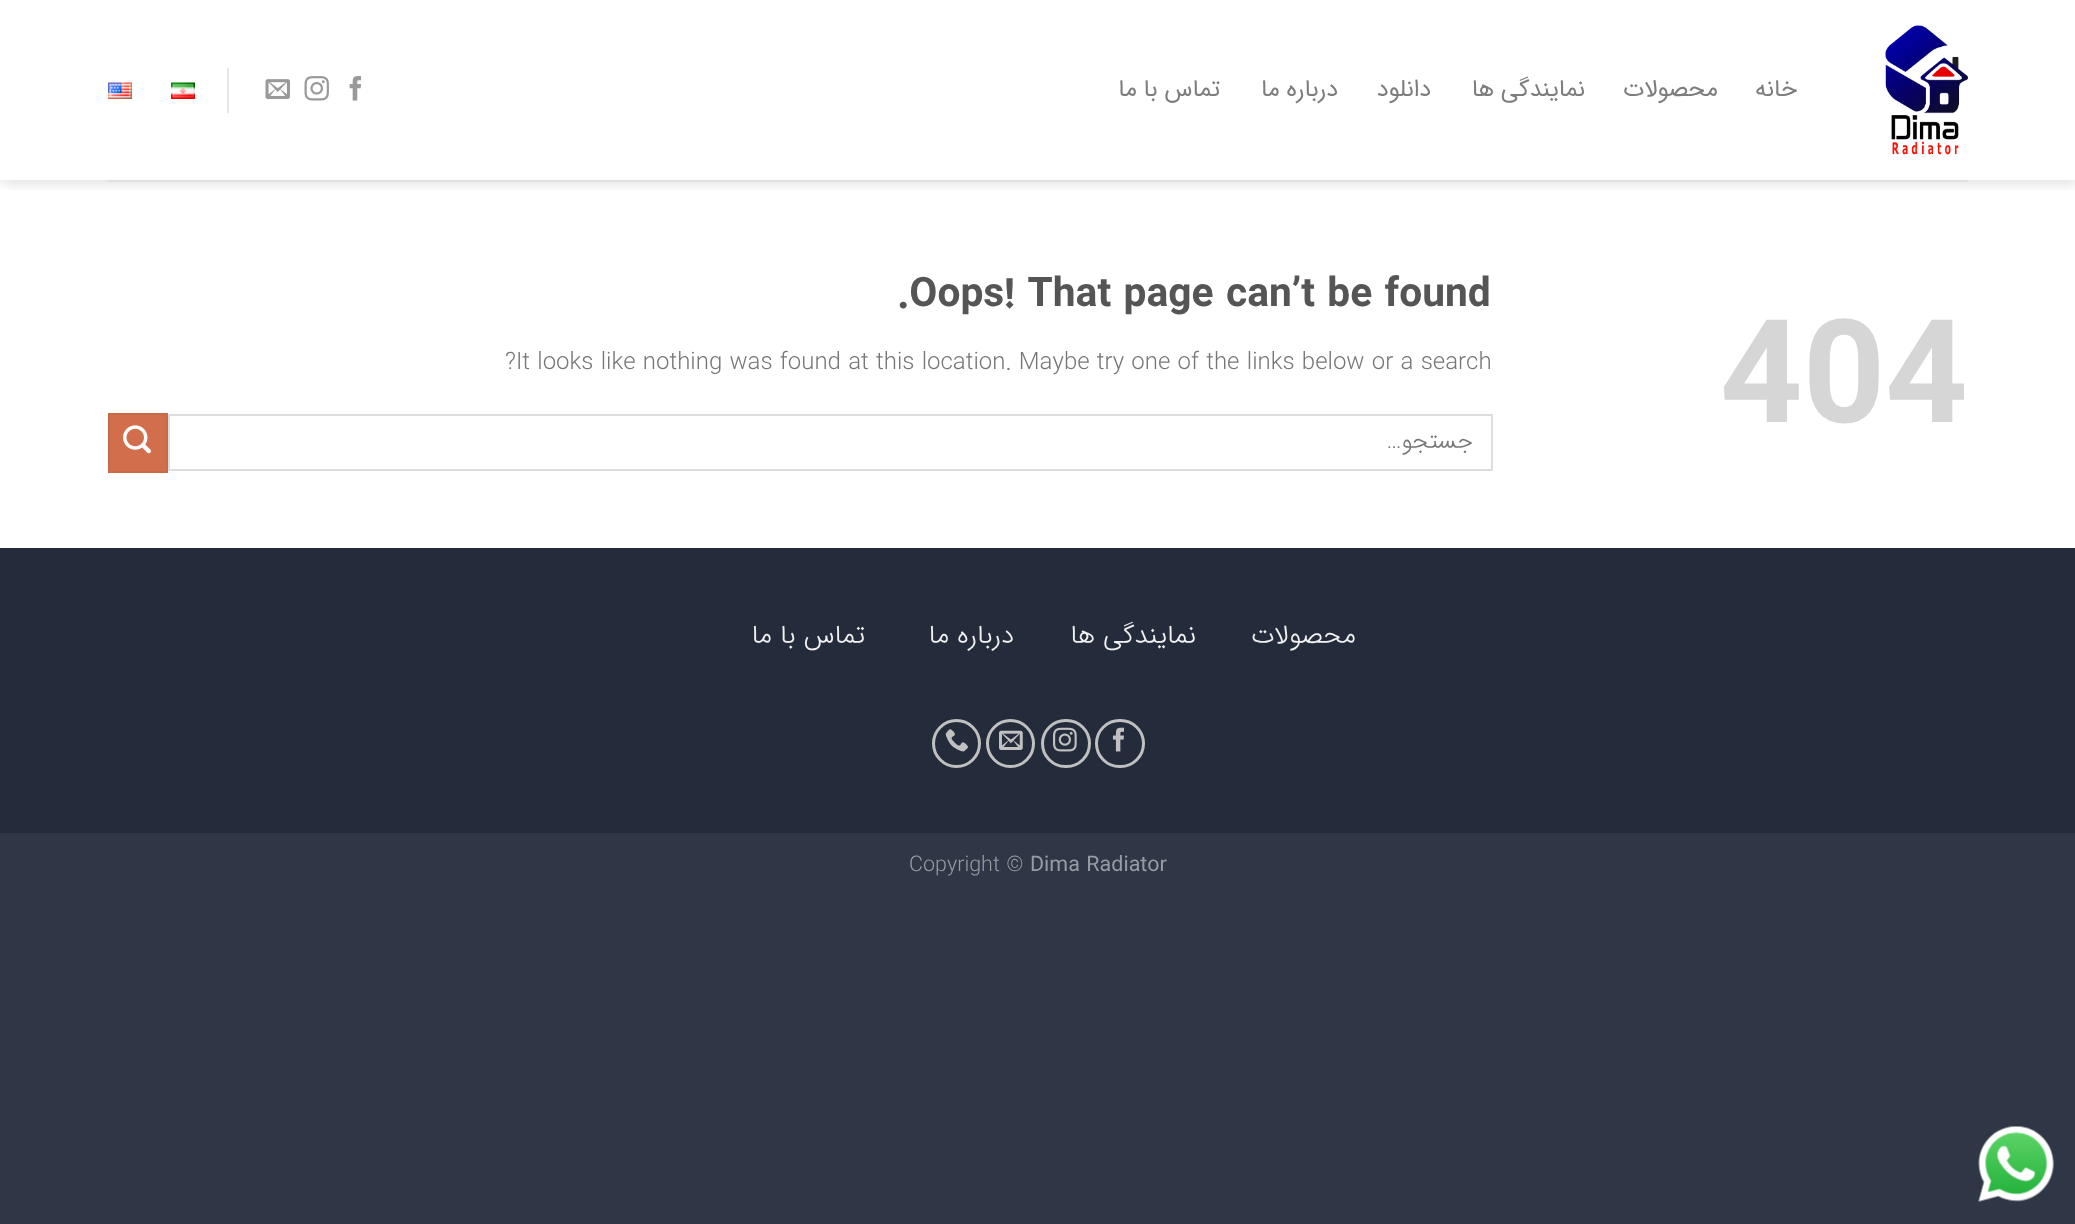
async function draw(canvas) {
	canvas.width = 2075;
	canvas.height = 1224;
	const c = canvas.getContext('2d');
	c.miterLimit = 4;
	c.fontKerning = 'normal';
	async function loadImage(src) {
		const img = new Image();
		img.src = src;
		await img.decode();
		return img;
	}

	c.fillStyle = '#2f3746';
	c.fillRect(0, 0, 2075, 1224);
	c.fillStyle = '#fff';
	c.fillRect(0, 0, 2075, 548);
	c.save();
	c.beginPath();
	c.rect(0, 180, 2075, 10);
	c.clip();
	c.fillStyle = '#00000026';
	c.filter = 'blur(7.5px)';
	c.beginPath();
	c.rect(2, 2, 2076, 180);
	c.fill();
	c.filter = 'none';
	c.restore();
	c.drawImage(await loadImage('img1.png'), 108, 82, 24, 17);
	c.drawImage(await loadImage('img2.png'), 171, 82, 24, 17);
	c.fillStyle = '#e6e6e6';
	c.fillRect(227, 68, 2, 45);
	c.drawImage(await loadImage('img3.png'), 265, 79, 25, 20);
	c.drawImage(await loadImage('img4.png'), 304, 76, 25, 25);
	c.drawImage(await loadImage('img5.png'), 349, 76, 13, 25);
	c.letterSpacing = '0.5px';
	c.wordSpacing = '-1px';
	c.direction = 'rtl';
	c.font = '24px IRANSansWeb';
	c.fillStyle = '#7d7d7d';
	c.fillText('تماس با ما', 1220, 96);
	c.fillText('درباره ما', 1338, 96);
	c.wordSpacing = '0px';
	c.fillText('دانلود', 1431, 96);
	c.wordSpacing = '-1px';
	c.fillText('نمایندگی ها', 1585, 96);
	c.wordSpacing = '0px';
	c.fillText('محصولات', 1718, 96);
	c.fillText('خانه', 1797, 96);
	c.drawImage(await loadImage('img6.png'), 1885, 25, 83, 130);
	c.fillStyle = '#dedede';
	c.fillRect(108, 180, 1860, 2);
	c.letterSpacing = '0px';
	c.direction = 'ltr';
	c.font = 'bold 40.75px IRANSansWeb';
	c.fillStyle = '#555';
	c.fillText('.Oops! That page can’t be found', 897, 306);
	c.font = '300 24px IRANSansWeb';
	c.fillStyle = '#777';
	c.fillText('?It looks like nothing was found at this location. Maybe try one of the links below or a search', 505, 369);
	c.fillStyle = '#d26e4b';
	c.beginPath();
	c.rect(109, 414, 58, 58);
	c.fill();
	c.strokeStyle = '#c86947';
	c.lineWidth = 2;
	c.stroke();
	c.drawImage(await loadImage('img7.png'), 123, 425, 28, 29);
	c.strokeStyle = '#ddd';
	c.strokeRect(169, 415, 1323, 55);
	c.direction = 'rtl';
	c.font = '300 23.5px IRANSansWeb';
	c.fillStyle = '#777';
	c.fillText('جستجو…', 1473, 448);
	c.direction = 'ltr';
	c.font = 'bold 144px IRANSansWeb';
	c.fillStyle = '#d6d6d6';
	c.fillText('404', 1720, 422);
	c.fillStyle = '#242c3c';
	c.fillRect(0, 548, 2075, 285);
	c.direction = 'rtl';
	c.font = '300 26.5px IRANSansWeb';
	c.fillStyle = '#f1f1f1';
	for (const [text, x, y] of [
		['تماس با ما', 865, 643],
		['درباره ما', 1014, 643],
		['نمایندگی ها', 1196, 643],
		['محصولات', 1356, 643],
	]) {
		c.fillText(text, x, y);
	}
	c.beginPath();
	c.arc(956.5, 743.5, 23, 0, 2 * Math.PI);
	c.strokeStyle = '#c0c0c0';
	c.lineWidth = 3;
	c.stroke();
	c.drawImage(await loadImage('img8.png'), 945, 729, 23, 23);
	c.beginPath();
	c.arc(1010.5, 743.5, 23, 0, 2 * Math.PI);
	c.stroke();
	c.drawImage(await loadImage('img9.png'), 999, 730, 24, 20);
	c.beginPath();
	c.roundRect(1042.5, 720.5, 47, 46, 23);
	c.stroke();
	c.drawImage(await loadImage('img10.png'), 1053, 727, 24, 25);
	c.beginPath();
	c.roundRect(1096.5, 720.5, 47, 46, 23);
	c.stroke();
	c.drawImage(await loadImage('img11.png'), 1112, 727, 12, 25);
	c.direction = 'ltr';
	c.font = '300 21.5px IRANSansWeb';
	c.fillStyle = '#979ba3';
	c.fillText('Copyright ©', 909, 871);
	c.font = '21.5px IRANSansWeb';
	c.fillText('Dima Radiator', 1030, 871);
	c.drawImage(await loadImage('img12.png'), 1978, 1126, 76, 76);
}

draw(document.querySelector('canvas'));
